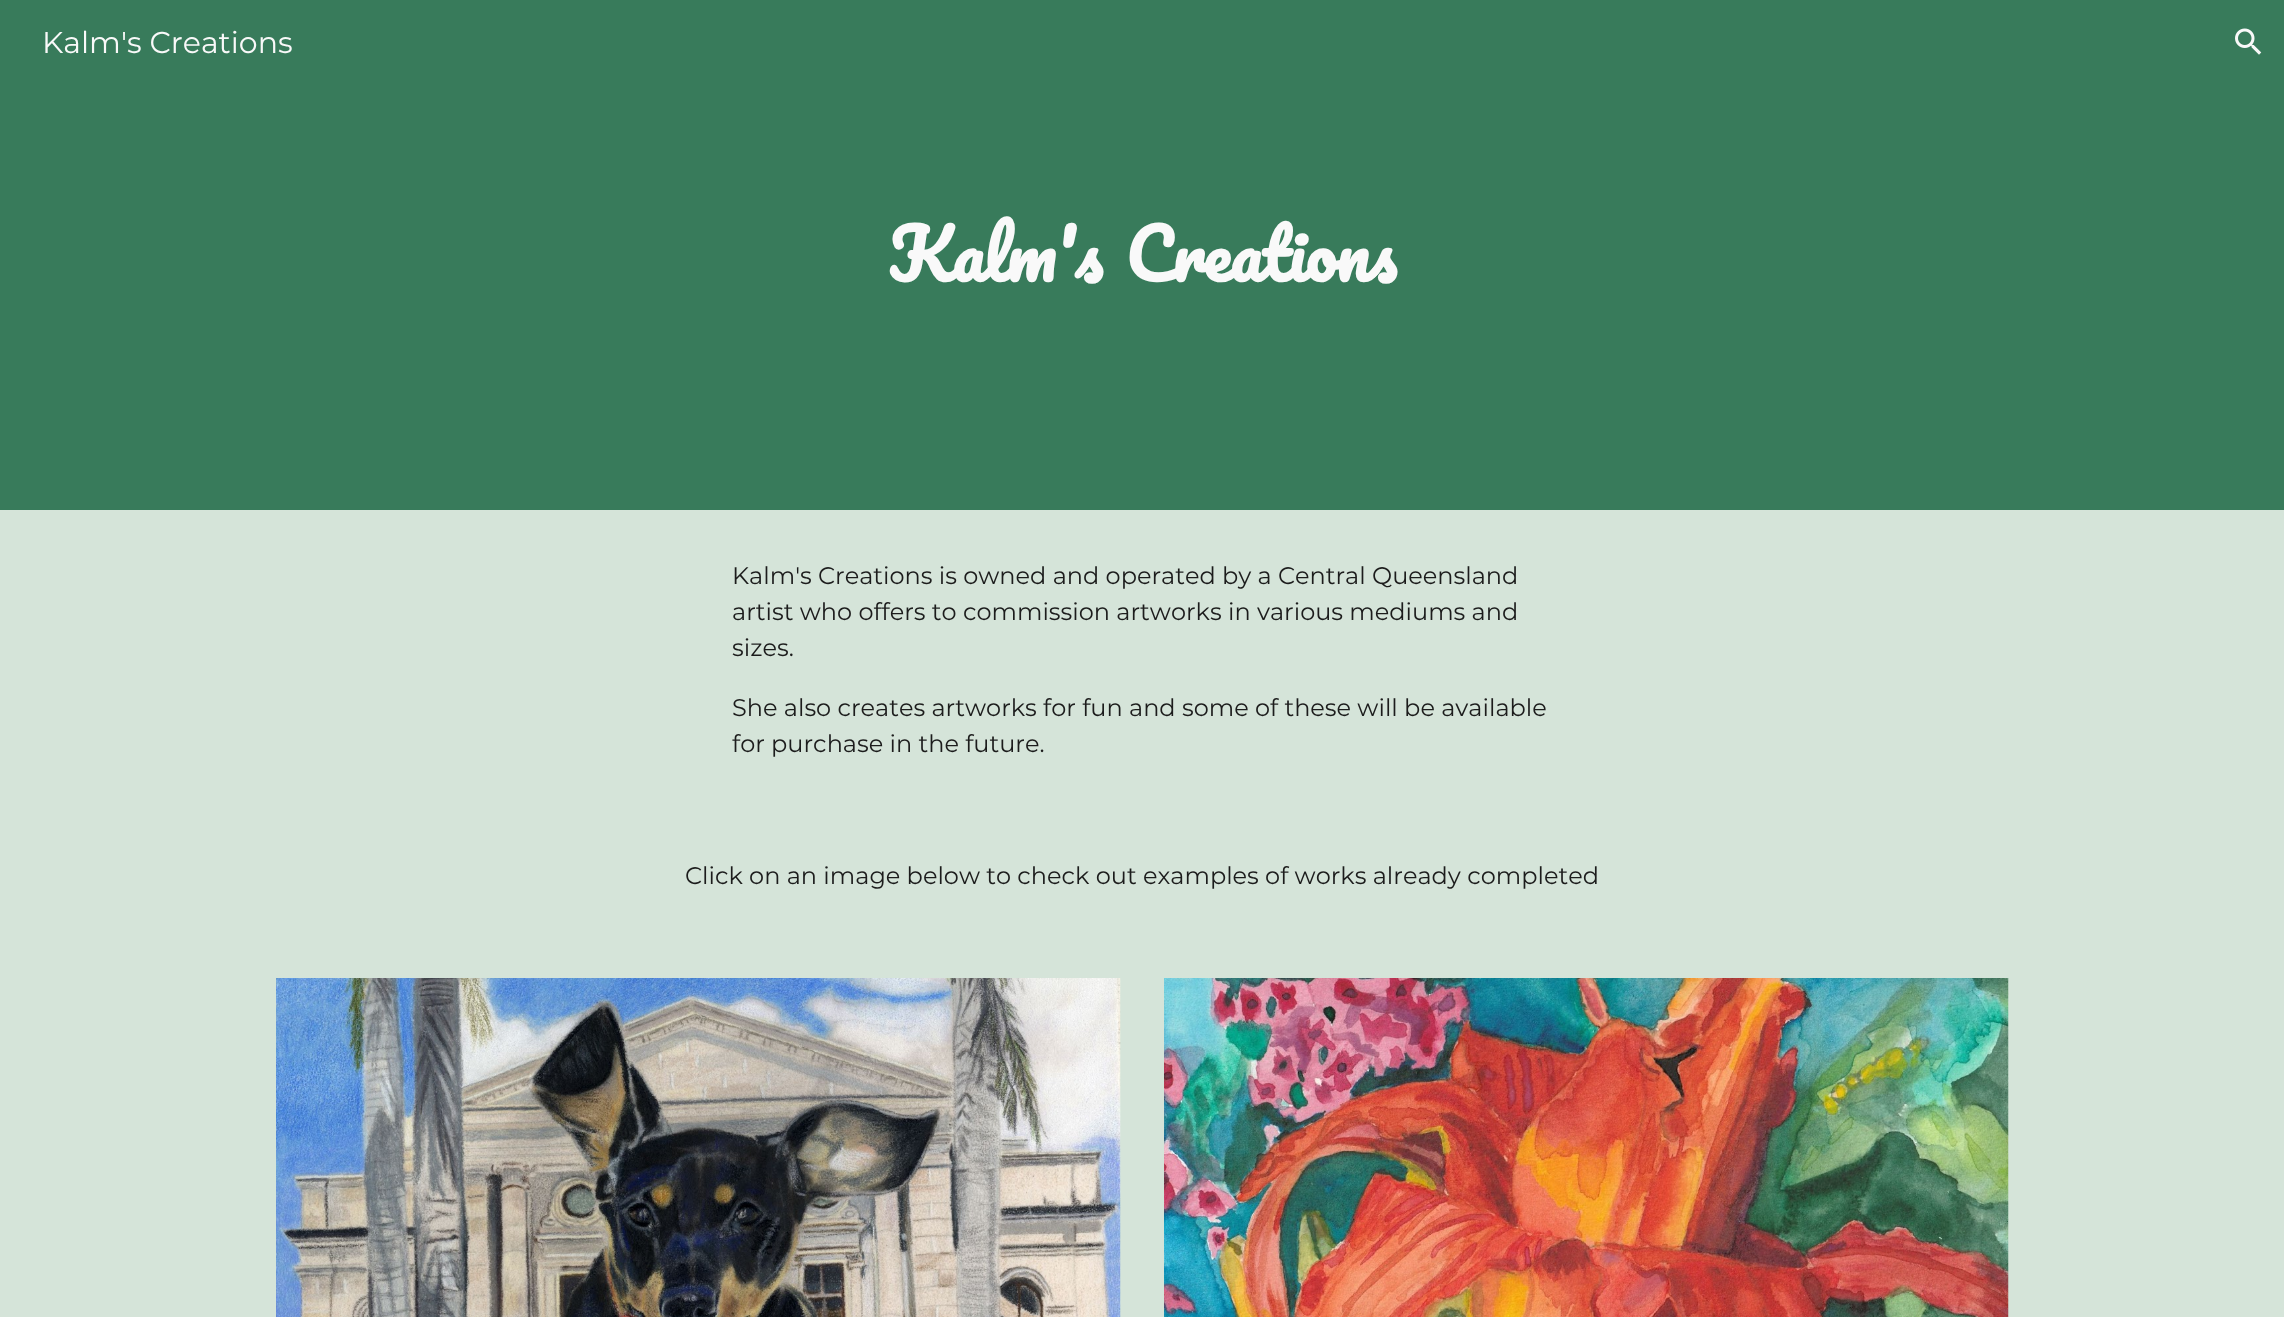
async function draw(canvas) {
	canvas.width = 2284;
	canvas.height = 1317;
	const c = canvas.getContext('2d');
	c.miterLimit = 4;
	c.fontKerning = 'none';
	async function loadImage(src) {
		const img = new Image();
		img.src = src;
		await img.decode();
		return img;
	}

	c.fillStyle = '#d5e4d9';
	c.fillRect(0, 0, 2284, 1317);
	c.fillStyle = '#387b5b';
	c.fillRect(0, 0, 2284, 510);
	c.font = '30px Montserrat';
	c.fillStyle = '#f9f9f9';
	c.fillText('Kalm\'s Creations', 42, 53);
	c.drawImage(await loadImage('img1.png'), 2235, 28, 27, 27);
	c.wordSpacing = '5px';
	c.font = 'bold 68px Pacifico';
	c.fillText('Kalm\'s Creations', 888, 282);
	c.wordSpacing = '0px';
	c.font = '24px Montserrat';
	c.fillStyle = '#1c1c1c';
	for (const [text, x, y] of [
		['Kalm\'s Creations is owned and operated by a Central', 732, 584],
		['Queensland', 1372, 584],
		['artist who offers to commission artworks in various mediums and', 732, 620],
		['sizes.', 732, 656],
		['She also creates artworks for fun and some of these will be available', 732, 716],
		['for purchase in the future.', 732, 752],
		['Click on an image below to check out examples of works already completed', 685, 884],
	]) {
		c.fillText(text, x, y);
	}
	c.drawImage(await loadImage('img2.png'), 276, 978, 845, 339);
	c.drawImage(await loadImage('img3.png'), 1164, 978, 845, 339);
}

draw(document.querySelector('canvas'));
